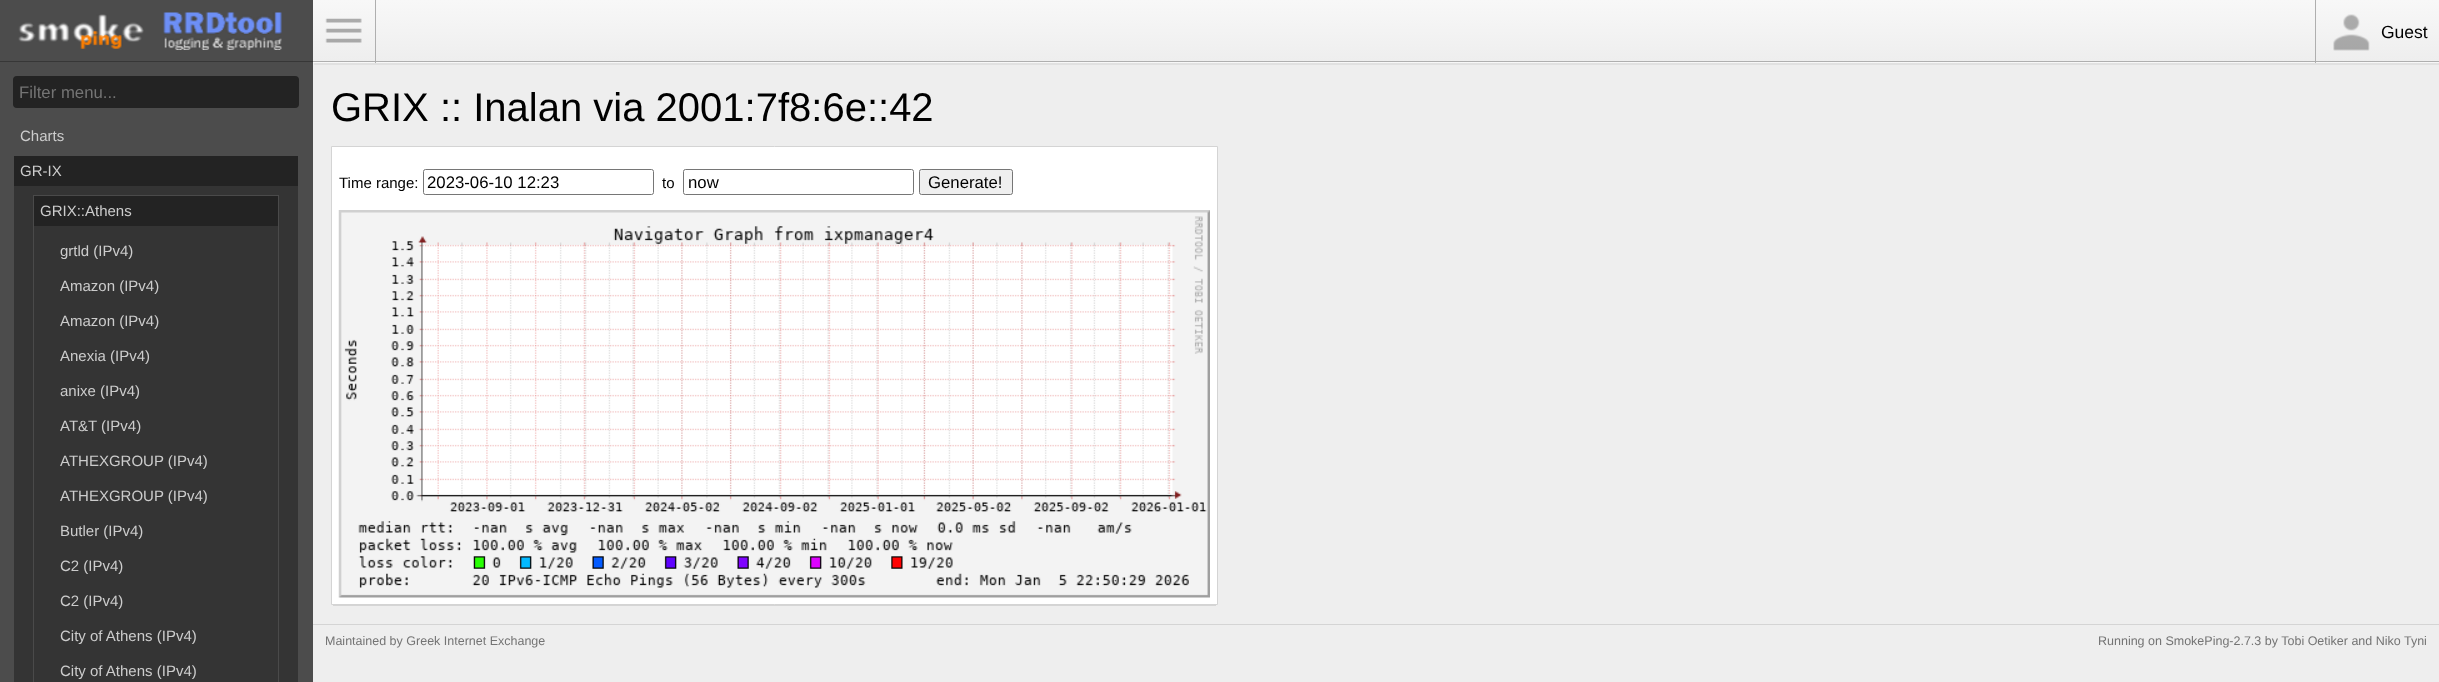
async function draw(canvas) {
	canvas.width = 2439;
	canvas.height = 682;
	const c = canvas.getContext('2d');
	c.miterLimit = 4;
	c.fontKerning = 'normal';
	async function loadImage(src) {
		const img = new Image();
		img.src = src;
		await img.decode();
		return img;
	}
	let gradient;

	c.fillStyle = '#eee';
	c.fillRect(0, 0, 2439, 682);
	c.fillStyle = '#4c4c4c';
	c.fillRect(0, 0, 313, 682);
	c.fillStyle = '#373737';
	c.fillRect(0, 61, 313, 1);
	c.fillStyle = '#0000000d';
	c.filter = 'blur(0.5px)';
	c.beginPath();
	c.rect(314, 5, 2125, 60);
	c.fill();
	c.filter = 'none';
	gradient = c.createLinearGradient(1376, 0, 1376, 61);
	gradient.addColorStop(0, '#f8f8f8');
	gradient.addColorStop(1, '#eee');
	c.fillStyle = gradient;
	c.fillRect(313, 0, 2126, 61);
	gradient = c.createLinearGradient(1376, 61, 1376, 123);
	gradient.addColorStop(0, '#f8f8f8');
	gradient.addColorStop(1, '#eee');
	c.fillStyle = gradient;
	c.fillRect(313, 62, 2126, 1);
	c.fillStyle = '#afafaf';
	c.fillRect(313, 61, 2126, 1);
	c.fillRect(375, 0, 1, 63);
	c.drawImage(await loadImage('img1.png'), 325, 18, 37, 25);
	c.fillRect(2315, 0, 1, 63);
	c.drawImage(await loadImage('img2.png'), 2333, 14, 37, 37);
	c.font = '17.5px Liberation Sans';
	c.fillStyle = '#000';
	c.fillText('Guest', 2381, 38);
	c.drawImage(await loadImage('img3.png'), 18, 14, 126, 35);
	c.drawImage(await loadImage('img4.png'), 163, 12, 119, 38);
	c.fillStyle = '#232323';
	c.beginPath();
	c.roundRect(13, 76, 286, 32, 4);
	c.fill();
	c.font = '16.75px Liberation Sans';
	c.fillStyle = '#747474';
	c.fillText('Filter menu...', 19, 98);
	c.font = '15px Liberation Sans';
	c.fillStyle = '#ccc';
	c.fillText('Charts', 20, 141);
	c.fillStyle = '#232323';
	c.fillRect(14, 156, 284, 30);
	c.fillStyle = '#ccc';
	c.fillText('GR-IX', 20, 176);
	c.fillStyle = '#343434';
	c.fillRect(14, 186, 284, 496);
	c.fillStyle = '#232323';
	c.fillRect(34, 196, 244, 30);
	c.strokeStyle = '#4a4a4a';
	c.strokeRect(33.5, 195.5, 245, 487);
	c.fillStyle = '#ccc';
	for (const [text, x, y] of [
		['GRIX::Athens', 40, 216],
		['grtld (IPv4)', 60, 256],
		['Amazon (IPv4)', 60, 291],
		['Amazon (IPv4)', 60, 326],
		['Anexia (IPv4)', 60, 361],
		['anixe (IPv4)', 60, 396],
		['AT&T (IPv4)', 60, 431],
		['ATHEXGROUP (IPv4)', 60, 466],
		['ATHEXGROUP (IPv4)', 60, 501],
		['Butler (IPv4)', 60, 536],
		['C2 (IPv4)', 60, 571],
		['C2 (IPv4)', 60, 606],
		['City of Athens (IPv4)', 60, 641],
		['City of Athens (IPv4)', 60, 676],
	]) {
		c.fillText(text, x, y);
	}
	c.font = '40px Liberation Sans';
	c.fillStyle = '#000';
	c.fillText('GRIX :: Inalan via 2001:7f8:6e::42', 331, 121);
	c.fillStyle = '#0000001a';
	c.filter = 'blur(0.5px)';
	c.beginPath();
	c.rect(333, 150, 883, 456);
	c.fill();
	c.filter = 'none';
	c.fillStyle = '#fff';
	c.beginPath();
	c.rect(331.5, 146.5, 886, 458);
	c.fill();
	c.strokeStyle = '#d4d4d4';
	c.stroke();
	c.font = '15px Liberation Sans';
	c.fillStyle = '#000';
	c.fillText('Time range:', 339, 188);
	c.beginPath();
	c.roundRect(423.5, 169.5, 230, 25, 2);
	c.strokeStyle = '#767676';
	c.stroke();
	c.font = '16.75px Liberation Sans';
	c.fillText('2023-06-10 12:23', 427, 188);
	c.font = '15px Liberation Sans';
	c.fillText('to', 662, 188);
	c.beginPath();
	c.roundRect(683.5, 169.5, 230, 25, 2);
	c.stroke();
	c.font = '16.75px Liberation Sans';
	c.fillText('now', 688, 188);
	c.fillStyle = '#efefef';
	c.beginPath();
	c.roundRect(919.5, 169.5, 93, 25, 2);
	c.fill();
	c.stroke();
	c.fillStyle = '#000';
	c.fillText('Generate!', 928, 188);
	c.drawImage(await loadImage('img5.png'), 338, 210, 872, 388);
	c.fillStyle = '#d4d4d4';
	c.fillRect(313, 624, 2126, 1);
	c.font = '12.5px Liberation Sans';
	c.fillStyle = '#747474';
	c.fillText('Maintained by Greek Internet Exchange', 325, 645);
	c.fillText('Running on SmokePing-2.7.3 by Tobi Oetiker and Niko Tyni', 2098, 645);
}

draw(document.querySelector('canvas'));
